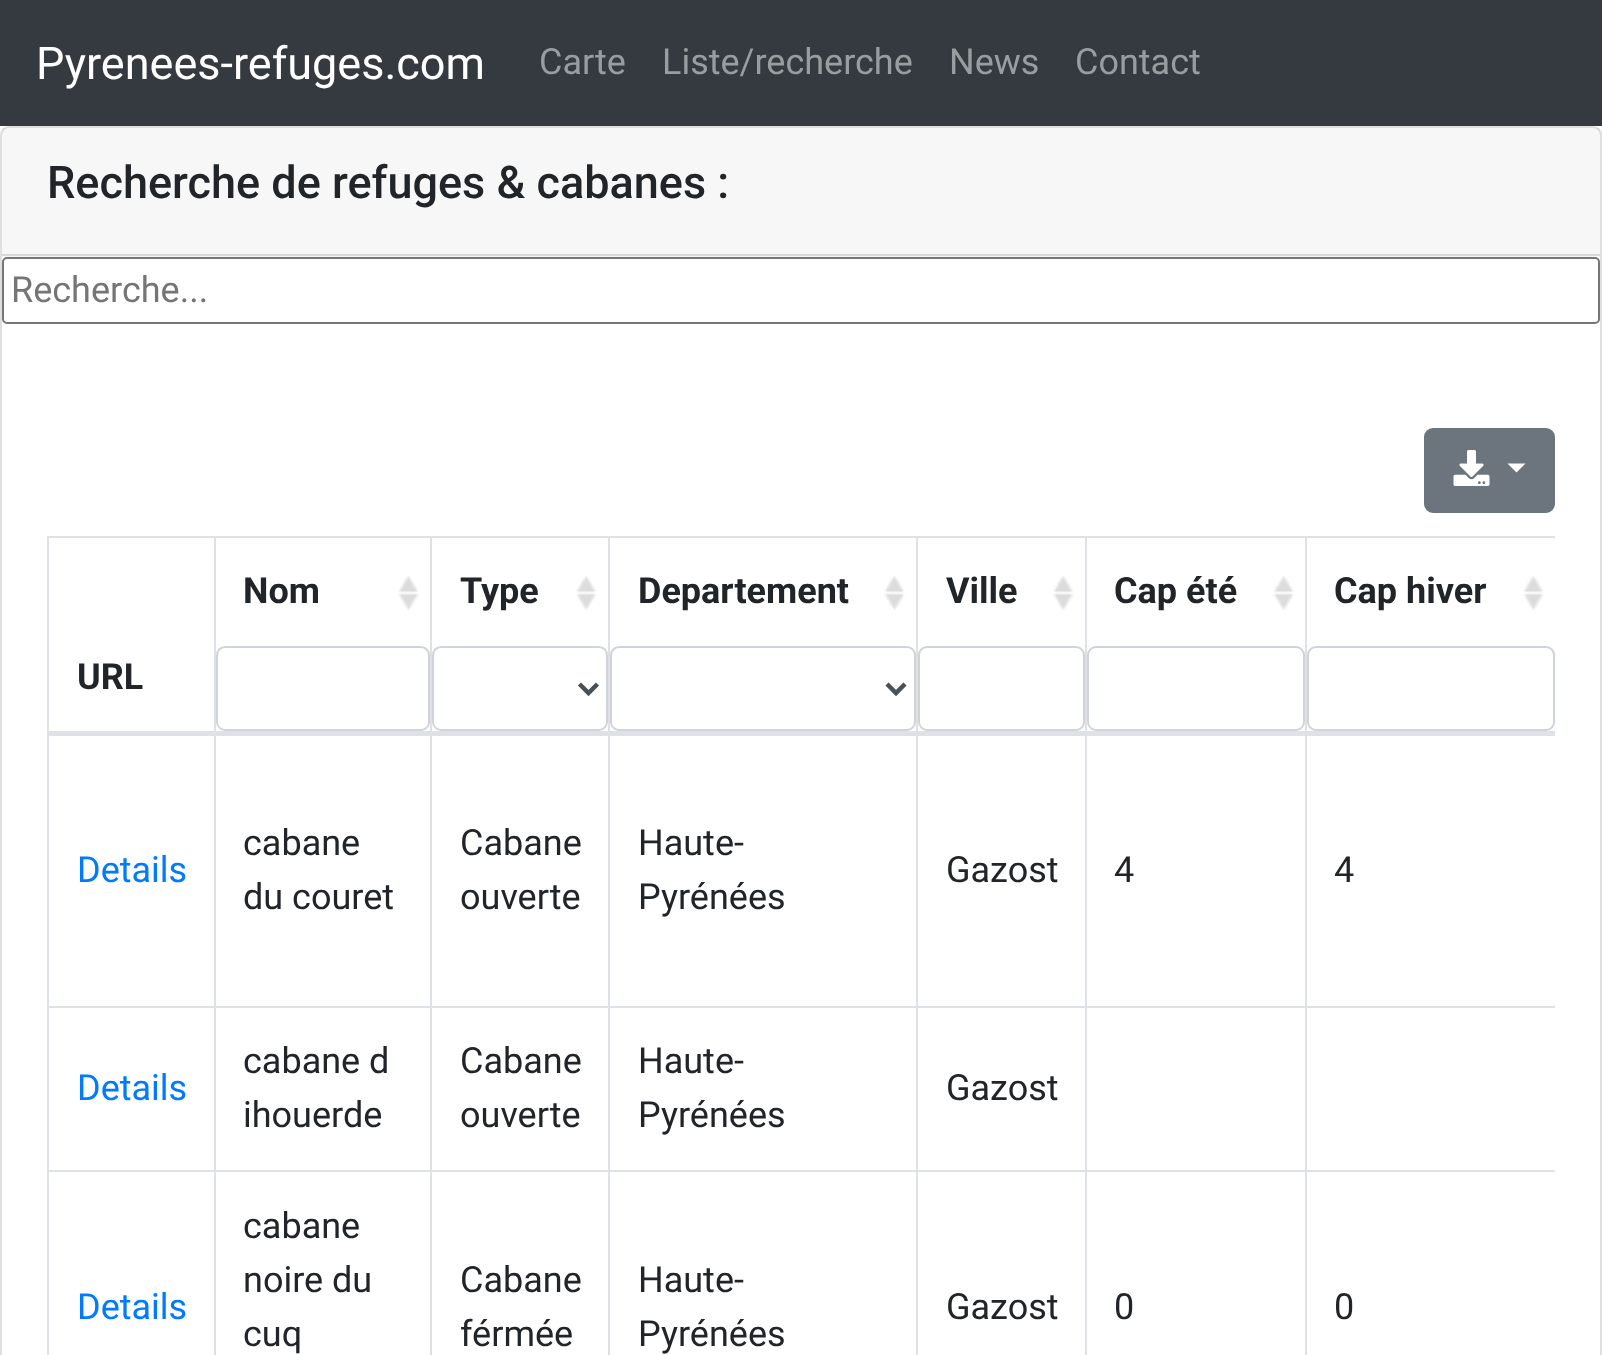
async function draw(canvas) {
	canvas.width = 1602;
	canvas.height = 1355;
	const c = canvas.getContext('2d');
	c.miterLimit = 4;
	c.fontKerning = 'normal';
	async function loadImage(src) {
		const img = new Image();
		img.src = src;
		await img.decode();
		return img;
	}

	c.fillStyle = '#fff';
	c.fillRect(0, 0, 1602, 1355);
	c.fillStyle = '#343a40';
	c.fillRect(0, 0, 1602, 126);
	c.font = '45px Roboto';
	c.fillStyle = '#fff';
	c.fillText('Pyrenees-refuges.com', 36, 79);
	c.font = '36px Roboto';
	c.fillStyle = '#9a9da0';
	for (const [text, x, y] of [
		['Carte', 539, 74],
		['Liste/recherche', 662, 74],
		['News', 949, 74],
		['Contact', 1075, 74],
	]) {
		c.fillText(text, x, y);
	}
	c.beginPath();
	c.roundRect(1, 127, 1600, 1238, 8);
	c.strokeStyle = '#dfdfdf';
	c.lineWidth = 2;
	c.stroke();
	c.fillStyle = '#00000008';
	c.fillRect(2, 128, 1598, 129);
	c.fillStyle = '#d8d8d8';
	c.fillRect(2, 254, 1598, 2);
	c.font = '500 45px Roboto';
	c.fillStyle = '#212529';
	c.fillText('Recherche de refuges & cabanes :', 47, 198);
	c.beginPath();
	c.roundRect(3, 258, 1596, 65, 4);
	c.strokeStyle = '#767676';
	c.stroke();
	c.font = '36px Roboto';
	c.fillStyle = '#757575';
	c.fillText('Recherche...', 11, 302);
	c.fillStyle = '#6c757d';
	c.beginPath();
	c.roundRect(1425, 429, 129, 83, 8);
	c.fill();
	c.strokeStyle = '#6c757d';
	c.stroke();
	c.drawImage(await loadImage('img1.png'), 1453, 450, 37, 36);
	c.fillStyle = '#fff';
	c.beginPath();
	c.moveTo(1507.5, 463.5);
	c.lineTo(1525.5, 463.5);
	c.lineTo(1516.5, 472.5);
	c.closePath();
	c.fill();
	c.fillStyle = '#dee2e6';
	c.fillRect(47, 536, 1508, 2);
	c.fillRect(47, 536, 2, 819);
	c.drawImage(await loadImage('img2.png'), 398, 575, 21, 36);
	c.font = 'bold 36px Roboto';
	c.fillStyle = '#212529';
	c.fillText('Nom', 243, 603);
	c.beginPath();
	c.roundRect(217, 647, 212, 83, 8);
	c.strokeStyle = '#ced4da';
	c.stroke();
	c.drawImage(await loadImage('img3.png'), 576, 575, 21, 35);
	c.fillText('Type', 460, 603);
	c.beginPath();
	c.roundRect(433, 647, 174, 83, 8);
	c.stroke();
	c.beginPath();
	c.moveTo(579.5, 684);
	c.lineTo(588.5, 693);
	c.lineTo(597.5, 684);
	c.strokeStyle = '#495057';
	c.lineWidth = 4.5;
	c.stroke();
	c.drawImage(await loadImage('img4.png'), 884, 575, 21, 36);
	c.fillText('Departement', 638, 603);
	c.beginPath();
	c.roundRect(611, 647, 304, 83, 8);
	c.strokeStyle = '#ced4da';
	c.lineWidth = 2;
	c.stroke();
	c.beginPath();
	c.moveTo(887, 684);
	c.lineTo(896, 693);
	c.lineTo(905, 684);
	c.strokeStyle = '#495057';
	c.lineWidth = 4.5;
	c.stroke();
	c.drawImage(await loadImage('img3.png'), 1053, 575, 21, 35);
	c.fillText('Ville', 946, 603);
	c.beginPath();
	c.roundRect(919, 647, 165, 83, 8);
	c.strokeStyle = '#ced4da';
	c.lineWidth = 2;
	c.stroke();
	c.drawImage(await loadImage('img5.png'), 1273, 575, 21, 36);
	c.fillText('Cap été', 1114, 603);
	c.beginPath();
	c.roundRect(1088, 647, 216, 83, 8);
	c.stroke();
	for (const [x, y, w, h, color] of [
		[1305, 1006, 250, 2, '#dee2e6'],
		[1305, 1170, 250, 2, '#dee2e6'],
		[1305, 1170, 2, 185, '#dee2e6'],
		[1085, 1170, 222, 2, '#dee2e6'],
		[1305, 1006, 2, 166, '#dee2e6'],
		[1085, 1006, 222, 2, '#dee2e6'],
		[1085, 1170, 2, 185, '#dee2e6'],
		[916, 1170, 171, 2, '#dee2e6'],
		[1085, 1006, 2, 166, '#dee2e6'],
		[916, 1006, 171, 2, '#dee2e6'],
		[916, 1170, 2, 185, '#dee2e6'],
		[608, 1170, 310, 2, '#dee2e6'],
		[916, 1006, 2, 166, '#dee2e6'],
		[608, 1006, 310, 2, '#dee2e6'],
		[608, 1170, 2, 185, '#dee2e6'],
		[430, 1170, 180, 2, '#dee2e6'],
		[608, 1006, 2, 166, '#dee2e6'],
		[430, 1006, 180, 2, '#dee2e6'],
		[430, 1170, 2, 185, '#dee2e6'],
		[214, 1170, 218, 2, '#dee2e6'],
		[430, 1006, 2, 166, '#dee2e6'],
		[214, 1006, 218, 2, '#dee2e6'],
		[214, 1170, 2, 185, '#dee2e6'],
		[47, 1170, 169, 2, '#dee2e6'],
		[214, 1006, 2, 166, '#dee2e6'],
		[47, 1006, 169, 2, '#dee2e6'],
		[214, 536, 2, 472, '#dee2e6'],
		[430, 536, 2, 472, '#dee2e6'],
		[608, 536, 2, 472, '#dee2e6'],
		[916, 536, 2, 472, '#dee2e6'],
		[1085, 536, 2, 472, '#dee2e6'],
		[1305, 536, 2, 472, '#dee2e6'],
		[47, 731, 1508, 5, '#dee2e6'],
	]) {
		c.fillStyle = color;
		c.fillRect(x, y, w, h);
	}
	c.drawImage(await loadImage('img4.png'), 1523, 575, 21, 36);
	c.fillStyle = '#212529';
	c.fillText('Cap hiver', 1334, 603);
	c.beginPath();
	c.roundRect(1308, 647, 246, 83, 8);
	c.stroke();
	c.fillText('URL', 77, 689);
	c.font = '36px Roboto';
	c.fillStyle = '#007bff';
	c.fillText('Details', 77, 882);
	c.fillStyle = '#212529';
	for (const [text, x, y] of [
		['cabane', 243, 855],
		['du couret', 243, 909],
		['Cabane', 460, 855],
		['ouverte', 460, 909],
		['Haute-', 638, 855],
		['Pyrénées', 638, 909],
		['Gazost', 946, 882],
		['4', 1114, 882],
		['4', 1334, 882],
	]) {
		c.fillText(text, x, y);
	}
	c.fillStyle = '#007bff';
	c.fillText('Details', 77, 1100);
	c.fillStyle = '#212529';
	for (const [text, x, y] of [
		['cabane d', 243, 1073],
		['ihouerde', 243, 1127],
		['Cabane', 460, 1073],
		['ouverte', 460, 1127],
		['Haute-', 638, 1073],
		['Pyrénées', 638, 1127],
		['Gazost', 946, 1100],
	]) {
		c.fillText(text, x, y);
	}
	c.fillStyle = '#007bff';
	c.fillText('Details', 77, 1319);
	c.fillStyle = '#212529';
	for (const [text, x, y] of [
		['cabane', 243, 1238],
		['noire du', 243, 1292],
		['cuq', 243, 1346],
		['Cabane', 460, 1292],
		['férmée', 460, 1346],
		['Haute-', 638, 1292],
		['Pyrénées', 638, 1346],
		['Gazost', 946, 1319],
		['0', 1114, 1319],
		['0', 1334, 1319],
	]) {
		c.fillText(text, x, y);
	}
}

draw(document.querySelector('canvas'));
